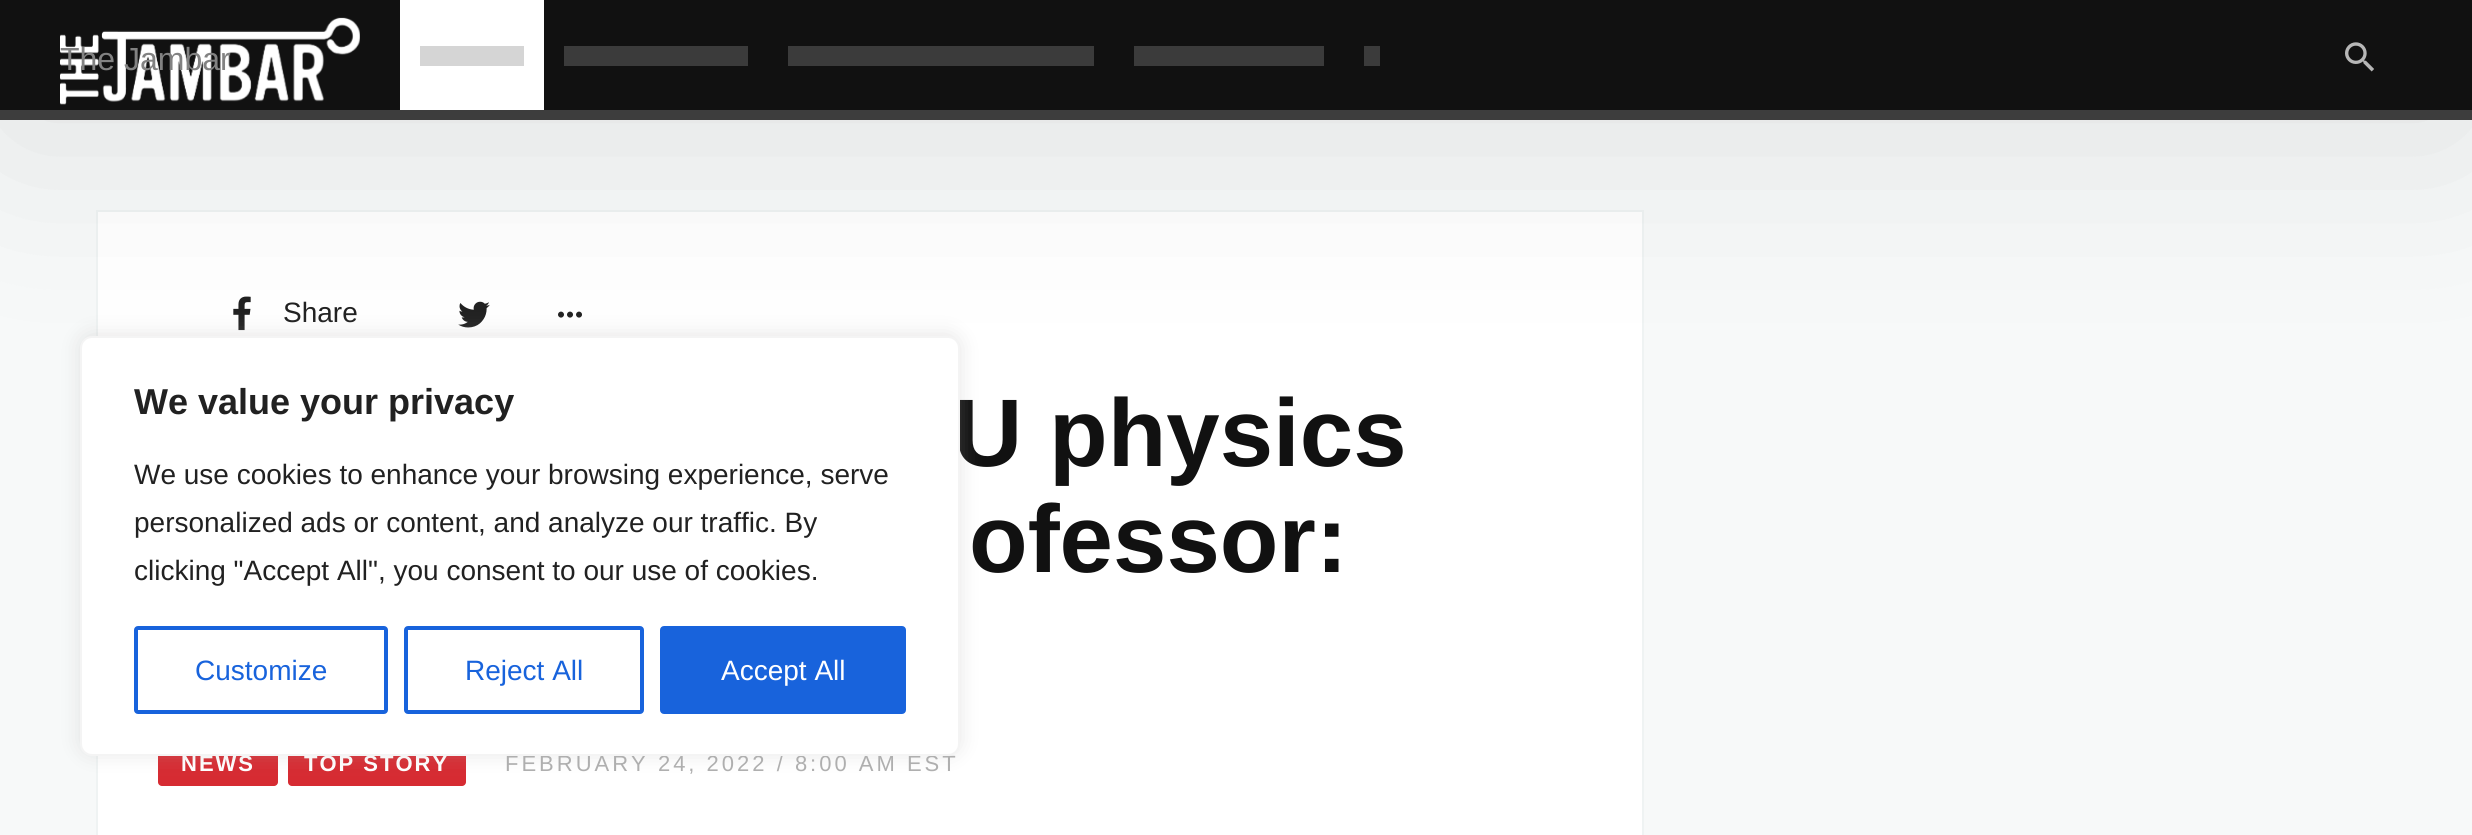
import math
import cairo

surface = cairo.ImageSurface(cairo.FORMAT_RGB24, 2472, 835)
ctx = cairo.Context(surface)
options = cairo.FontOptions()
options.set_hint_metrics(cairo.HINT_METRICS_OFF)
options.set_hint_style(cairo.HINT_STYLE_NONE)
ctx.set_font_options(options)
ctx.set_miter_limit(4)


def set_color(code):
    ctx.set_source_rgb(*(v / 255 for v in bytes.fromhex(code[-6:])))


def draw_text(x, y, s, family, size, color, bold=False, italic=False):
    ctx.select_font_face(family, cairo.FONT_SLANT_ITALIC if italic else cairo.FONT_SLANT_NORMAL, cairo.FONT_WEIGHT_BOLD if bold else cairo.FONT_WEIGHT_NORMAL)
    ctx.set_font_size(size)
    set_color(color)
    ctx.move_to(x, y)
    ctx.show_text(s)


def draw_spaced(x, y, s, letter, word):
    ctx.move_to(x, y)
    for ch in s:
        ctx.show_text(ch)
        ctx.rel_move_to(letter + word * (ch == ' '), 0)


def fill_rect(x, y, w, h, color):
    set_color(color)
    ctx.rectangle(x, y, w, h)
    ctx.fill()


def rounded_rect(x, y, w, h, r):
    ctx.new_sub_path()
    for i, (u, v) in enumerate([(x + w - r, y + h - r), (x + r, y + h - r), (x + r, y + r), (x + w - r, y + r)]):
        ctx.arc(u, v, r, i * math.pi / 2, (i + 1) * math.pi / 2)
    ctx.close_path()


def draw_shadow(x, y, w, h, r, blur, alpha):
    ctx.push_group_with_content(cairo.CONTENT_ALPHA)
    ctx.set_operator(cairo.OPERATOR_SOURCE)
    for i in range(15, -16, -2):
        e = blur * i / 6
        if min(w, h) + 2 * e > 0:
            ctx.set_source_rgba(0, 0, 0, alpha * math.erfc((i - 1) / 8.5) / 2)
            rounded_rect(x - e, y - e, w + 2 * e, h + 2 * e, max(0, min(r + e + blur * .6, min(w, h) / 2 + e)))
            ctx.fill()
    ctx.mask(ctx.pop_group())


def draw_image(path, x, y, w, h):
    ctx.save()
    ctx.set_source_surface(cairo.ImageSurface.create_from_png(path), x, y)
    ctx.rectangle(x, y, w, h)
    ctx.fill()
    ctx.restore()


set_color("#f7f9f9")
ctx.paint()
set_color("#ffffff")
ctx.rectangle(97, 211, 1546, 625)
ctx.fill_preserve()
set_color("#eff3f3")
ctx.stroke()
draw_image("assets/img3.png", 233, 296, 18, 35)
draw_image("assets/img4.png", 458, 301, 32, 27)
draw_image("assets/img5.png", 558, 311, 24, 7)
set_color("#000000")
draw_shadow(0, 20, 2472, 120, 0, 100, 0.1)
fill_rect(0, 110, 2472, 10, "#3d3d3d")
fill_rect(0, 0, 2472, 110, "#111111")
draw_image("assets/img1.png", 60, 17, 300, 88)
draw_text(60, 70, "The Jambar", "Liberation Sans", 32, "#828282")
fill_rect(400, 0, 144, 110, "#ffffff")
fill_rect(420, 46, 104, 20, "#d5d5d5")
fill_rect(564, 46, 184, 20, "#3b3b3b")
fill_rect(788, 46, 306, 20, "#3b3b3b")
fill_rect(1134, 46, 190, 20, "#3b3b3b")
fill_rect(1364, 46, 16, 20, "#3b3b3b")
draw_image("assets/img2.png", 2345, 42, 29, 30)
draw_text(283, 322, "Share", "Liberation Sans", 28, "#212121")
draw_text(953, 466, "U physics", "Liberation Sans", 96, "#111111", bold=True)
draw_text(969, 572, "ofessor:", "Liberation Sans", 96, "#111111", bold=True)
set_color("#d62b32")
rounded_rect(158, 738, 120, 48, 4)
ctx.fill()
ctx.set_font_size(22)
set_color("#ffffff")
draw_spaced(181, 771, "NEWS", 2, 0)
set_color("#d62b32")
rounded_rect(288, 738, 178, 48, 4)
ctx.fill()
set_color("#ffffff")
draw_spaced(304, 771, "TOP STORY", 2, 0)
ctx.select_font_face("Liberation Sans")
set_color("#afafaf")
draw_spaced(505, 771, "FEBRUARY 24, 2022 / 8:00 AM EST", 3, 0)
set_color("#acabab")
draw_shadow(80, 334, 880, 420, 12, 10, 0.3)
set_color("#ffffff")
rounded_rect(81, 337, 878, 418, 11)
ctx.fill_preserve()
set_color("#f4f4f4")
ctx.stroke()
draw_text(134, 414, "We value your privacy", "Liberation Sans", 36, "#212121", bold=True)
draw_text(134, 484, "We use cookies to enhance your browsing experience, serve", "Liberation Sans", 28, "#212121")
draw_text(134, 532, "personalized ads or content, and analyze our traffic. By", "Liberation Sans", 28, "#212121")
draw_text(134, 580, "clicking \"Accept All\", you consent to our use of cookies.", "Liberation Sans", 28, "#212121")
rounded_rect(136, 628, 250, 84, 2)
set_color("#1863dc")
ctx.set_line_width(4)
ctx.stroke()
draw_text(195, 680, "Customize", "Liberation Sans", 28, "#1863dc")
rounded_rect(406, 628, 236, 84, 2)
ctx.stroke()
draw_text(465, 680, "Reject All", "Liberation Sans", 28, "#1863dc")
rounded_rect(662, 628, 242, 84, 2)
ctx.fill_preserve()
ctx.stroke()
draw_text(721, 680, "Accept All", "Liberation Sans", 28, "#ffffff")
surface.write_to_png("output.png")
